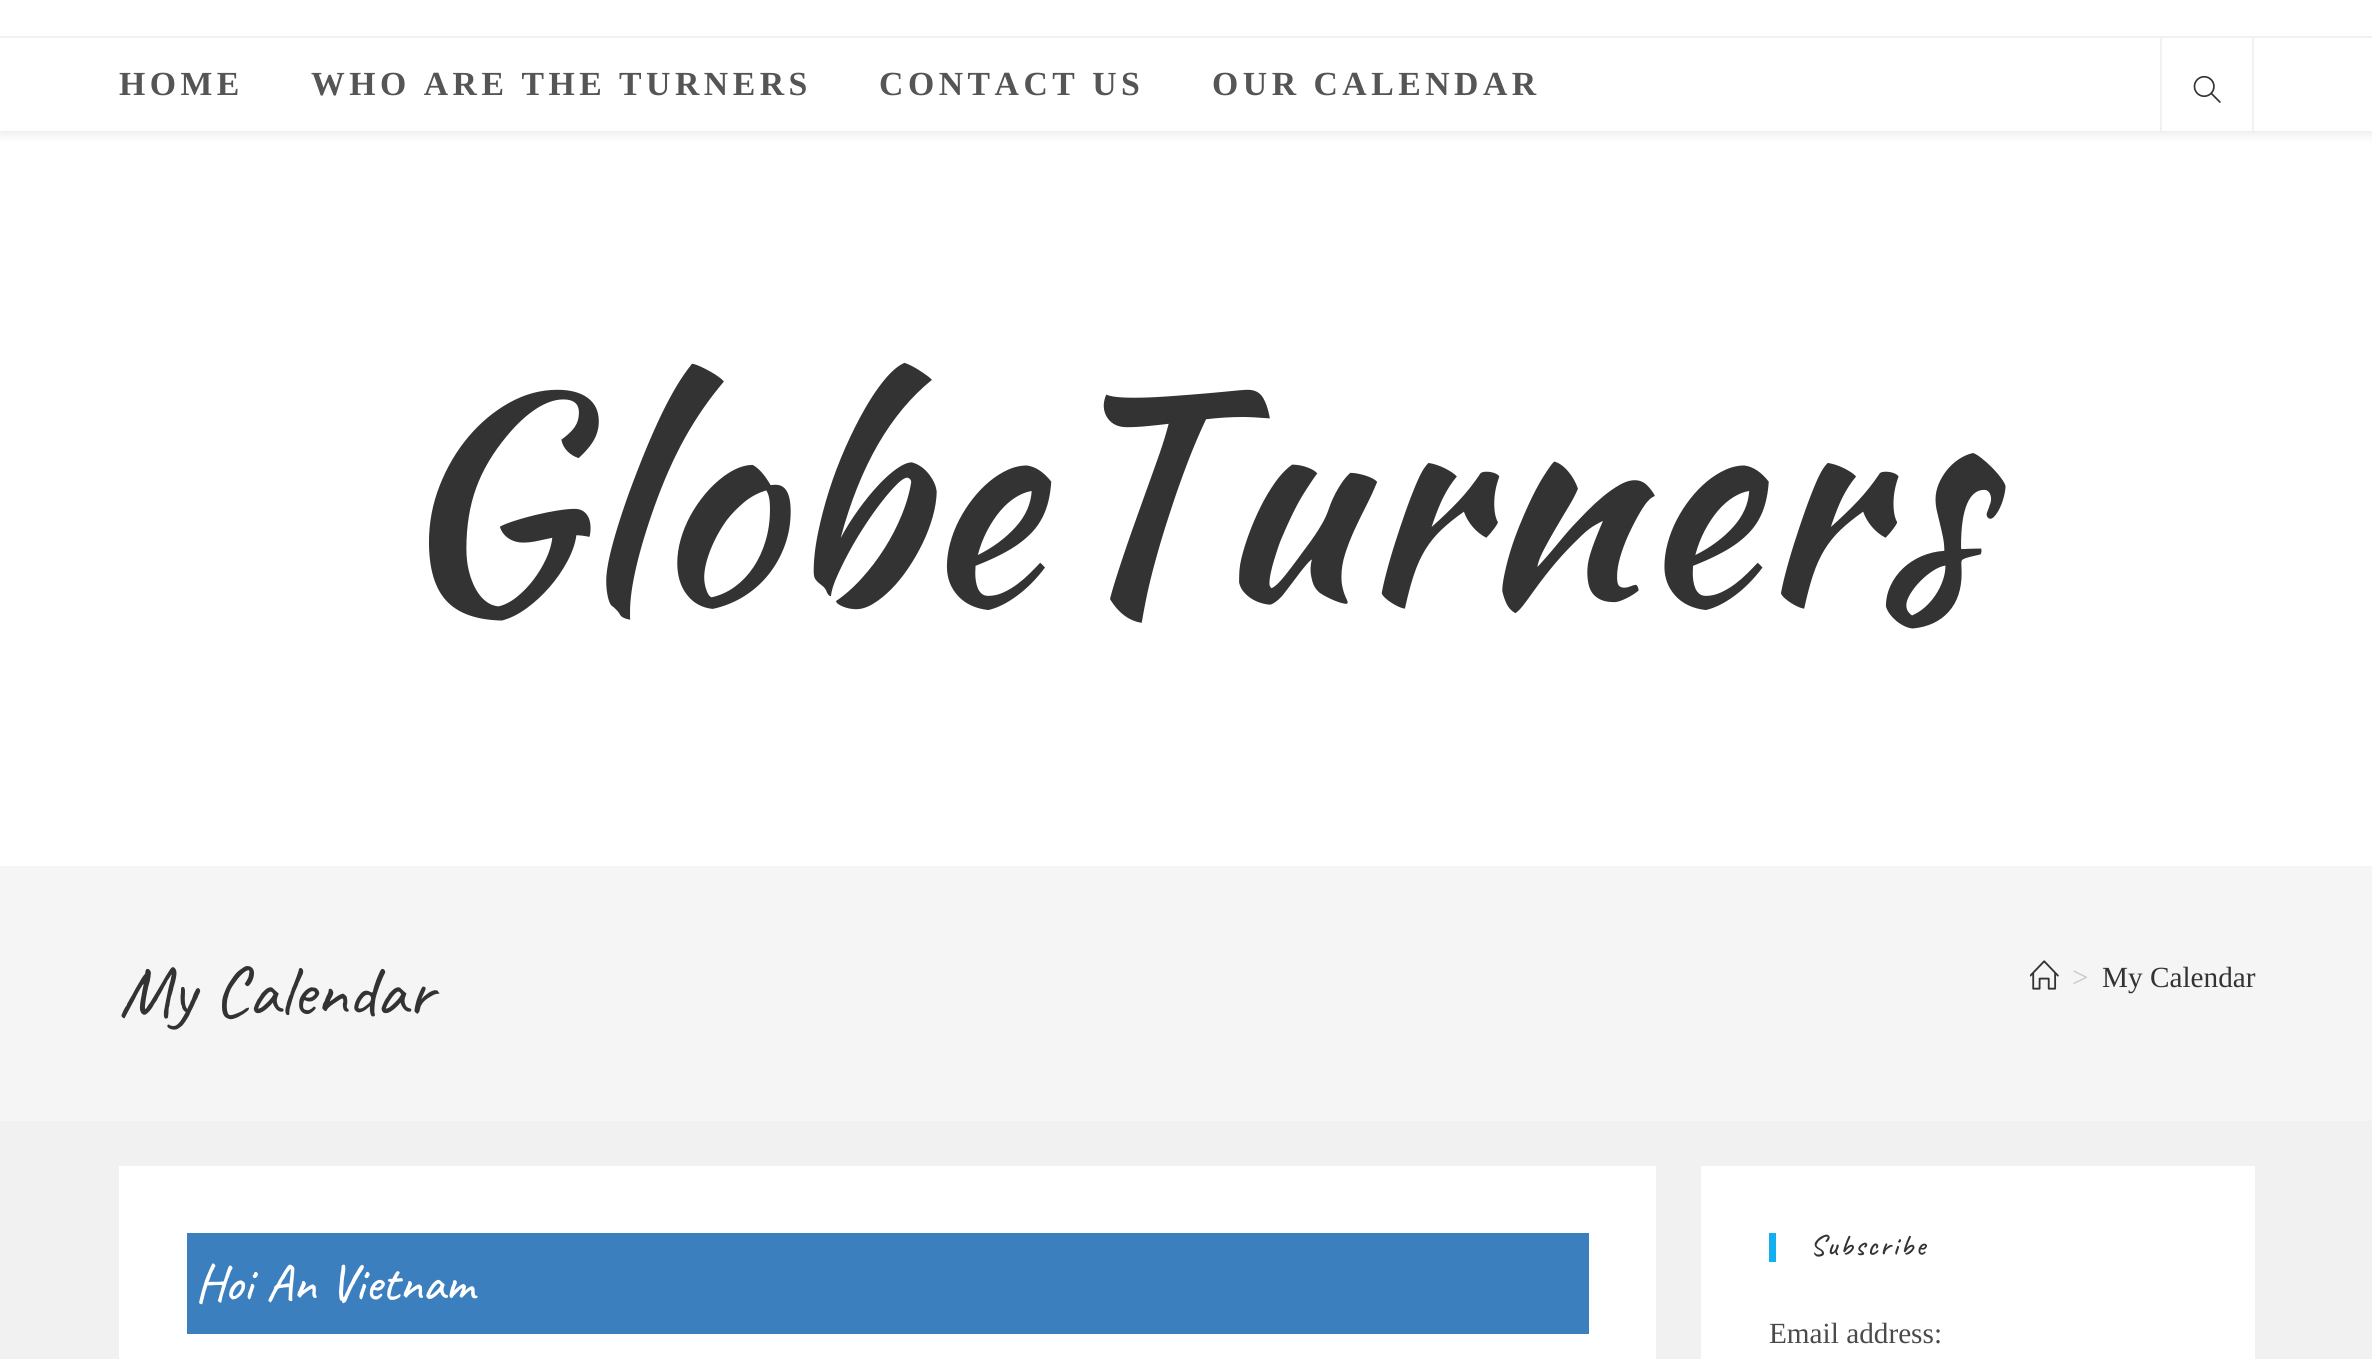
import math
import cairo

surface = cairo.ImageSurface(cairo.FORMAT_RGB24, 2372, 1359)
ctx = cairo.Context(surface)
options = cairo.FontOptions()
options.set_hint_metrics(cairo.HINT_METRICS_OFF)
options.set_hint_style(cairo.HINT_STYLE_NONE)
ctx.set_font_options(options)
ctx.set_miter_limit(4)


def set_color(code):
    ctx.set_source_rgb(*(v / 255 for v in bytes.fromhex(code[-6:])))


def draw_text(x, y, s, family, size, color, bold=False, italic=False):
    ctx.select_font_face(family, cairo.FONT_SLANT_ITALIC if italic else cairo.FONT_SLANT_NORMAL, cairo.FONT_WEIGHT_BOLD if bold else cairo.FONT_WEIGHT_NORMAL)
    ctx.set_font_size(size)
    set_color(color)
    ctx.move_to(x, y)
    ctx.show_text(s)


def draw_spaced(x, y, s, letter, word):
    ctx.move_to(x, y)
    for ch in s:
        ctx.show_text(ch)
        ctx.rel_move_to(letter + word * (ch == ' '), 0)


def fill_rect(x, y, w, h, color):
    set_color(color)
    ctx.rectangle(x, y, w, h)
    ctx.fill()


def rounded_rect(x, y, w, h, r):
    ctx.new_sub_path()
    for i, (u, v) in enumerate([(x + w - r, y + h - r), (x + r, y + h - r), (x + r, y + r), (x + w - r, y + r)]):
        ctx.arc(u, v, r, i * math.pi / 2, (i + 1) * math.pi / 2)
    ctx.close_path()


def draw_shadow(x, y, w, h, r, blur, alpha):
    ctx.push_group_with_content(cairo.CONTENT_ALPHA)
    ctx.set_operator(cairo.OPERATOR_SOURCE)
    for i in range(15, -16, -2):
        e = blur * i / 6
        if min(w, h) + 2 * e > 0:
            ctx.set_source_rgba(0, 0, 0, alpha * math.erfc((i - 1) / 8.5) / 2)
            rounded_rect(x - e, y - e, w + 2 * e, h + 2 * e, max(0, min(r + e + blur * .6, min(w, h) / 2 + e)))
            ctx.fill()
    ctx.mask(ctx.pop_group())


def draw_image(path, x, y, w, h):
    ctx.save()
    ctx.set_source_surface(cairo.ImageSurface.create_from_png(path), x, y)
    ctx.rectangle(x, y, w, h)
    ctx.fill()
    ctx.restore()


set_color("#f1f1f1")
ctx.paint()
fill_rect(0, 131, 2372, 735, "#ffffff")
set_color("#000000")
draw_shadow(0, 41, 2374, 92, 0, 5.5, 0.1)
fill_rect(0, 0, 2372, 36, "#ffffff")
fill_rect(0, 36, 2372, 2, "#f1f1f1")
fill_rect(0, 38, 2372, 93, "#ffffff")
ctx.select_font_face("Liberation Serif", cairo.FONT_SLANT_NORMAL, cairo.FONT_WEIGHT_BOLD)
ctx.set_font_size(33.75)
set_color("#555555")
draw_spaced(119, 95, "HOME", 4.5, 0)
draw_spaced(311, 95, "WHO ARE THE TURNERS", 4.5, 0)
draw_spaced(879, 95, "CONTACT US", 4.5, 0)
draw_spaced(1212, 95, "OUR CALENDAR", 4.5, 0)
fill_rect(2252, 38, 2, 93, "#f1f1f1")
fill_rect(2160, 38, 2, 93, "#f1f1f1")
draw_image("assets/img1.png", 2193, 75, 28, 28)
ctx.select_font_face("Kaushan Script")
ctx.set_font_size(283.5)
set_color("#333333")
draw_spaced(389, 599, "GlobeTurners", 5.8, 0)
fill_rect(0, 866, 2372, 255, "#f5f5f5")
ctx.select_font_face("Caveat")
ctx.set_font_size(72)
set_color("#333333")
draw_spaced(119, 1015, "My Calendar", 0, 1)
draw_image("assets/img2.png", 2030, 960, 29, 30)
draw_text(2072, 987, ">", "Liberation Serif", 29.25, "#c6c6c6")
draw_text(2102, 987, "My Calendar", "Liberation Serif", 29.25, "#333333")
fill_rect(119, 1166, 1537, 193, "#ffffff")
fill_rect(187, 1233, 1402, 101, "#3b7fbf")
ctx.select_font_face("Caveat Medium")
ctx.set_font_size(51.75)
set_color("#ffffff")
draw_spaced(195, 1300, "Hoi An Vietnam", 0, 1)
fill_rect(1701, 1166, 554, 193, "#ffffff")
fill_rect(1769, 1233, 7, 29, "#13aff0")
ctx.set_font_size(29.25)
set_color("#333333")
draw_spaced(1810, 1255, "Subscribe", 2.25, 0)
draw_text(1769, 1343, "Email address:", "Liberation Serif", 29.25, "#4a4a4a")
surface.write_to_png("output.png")
